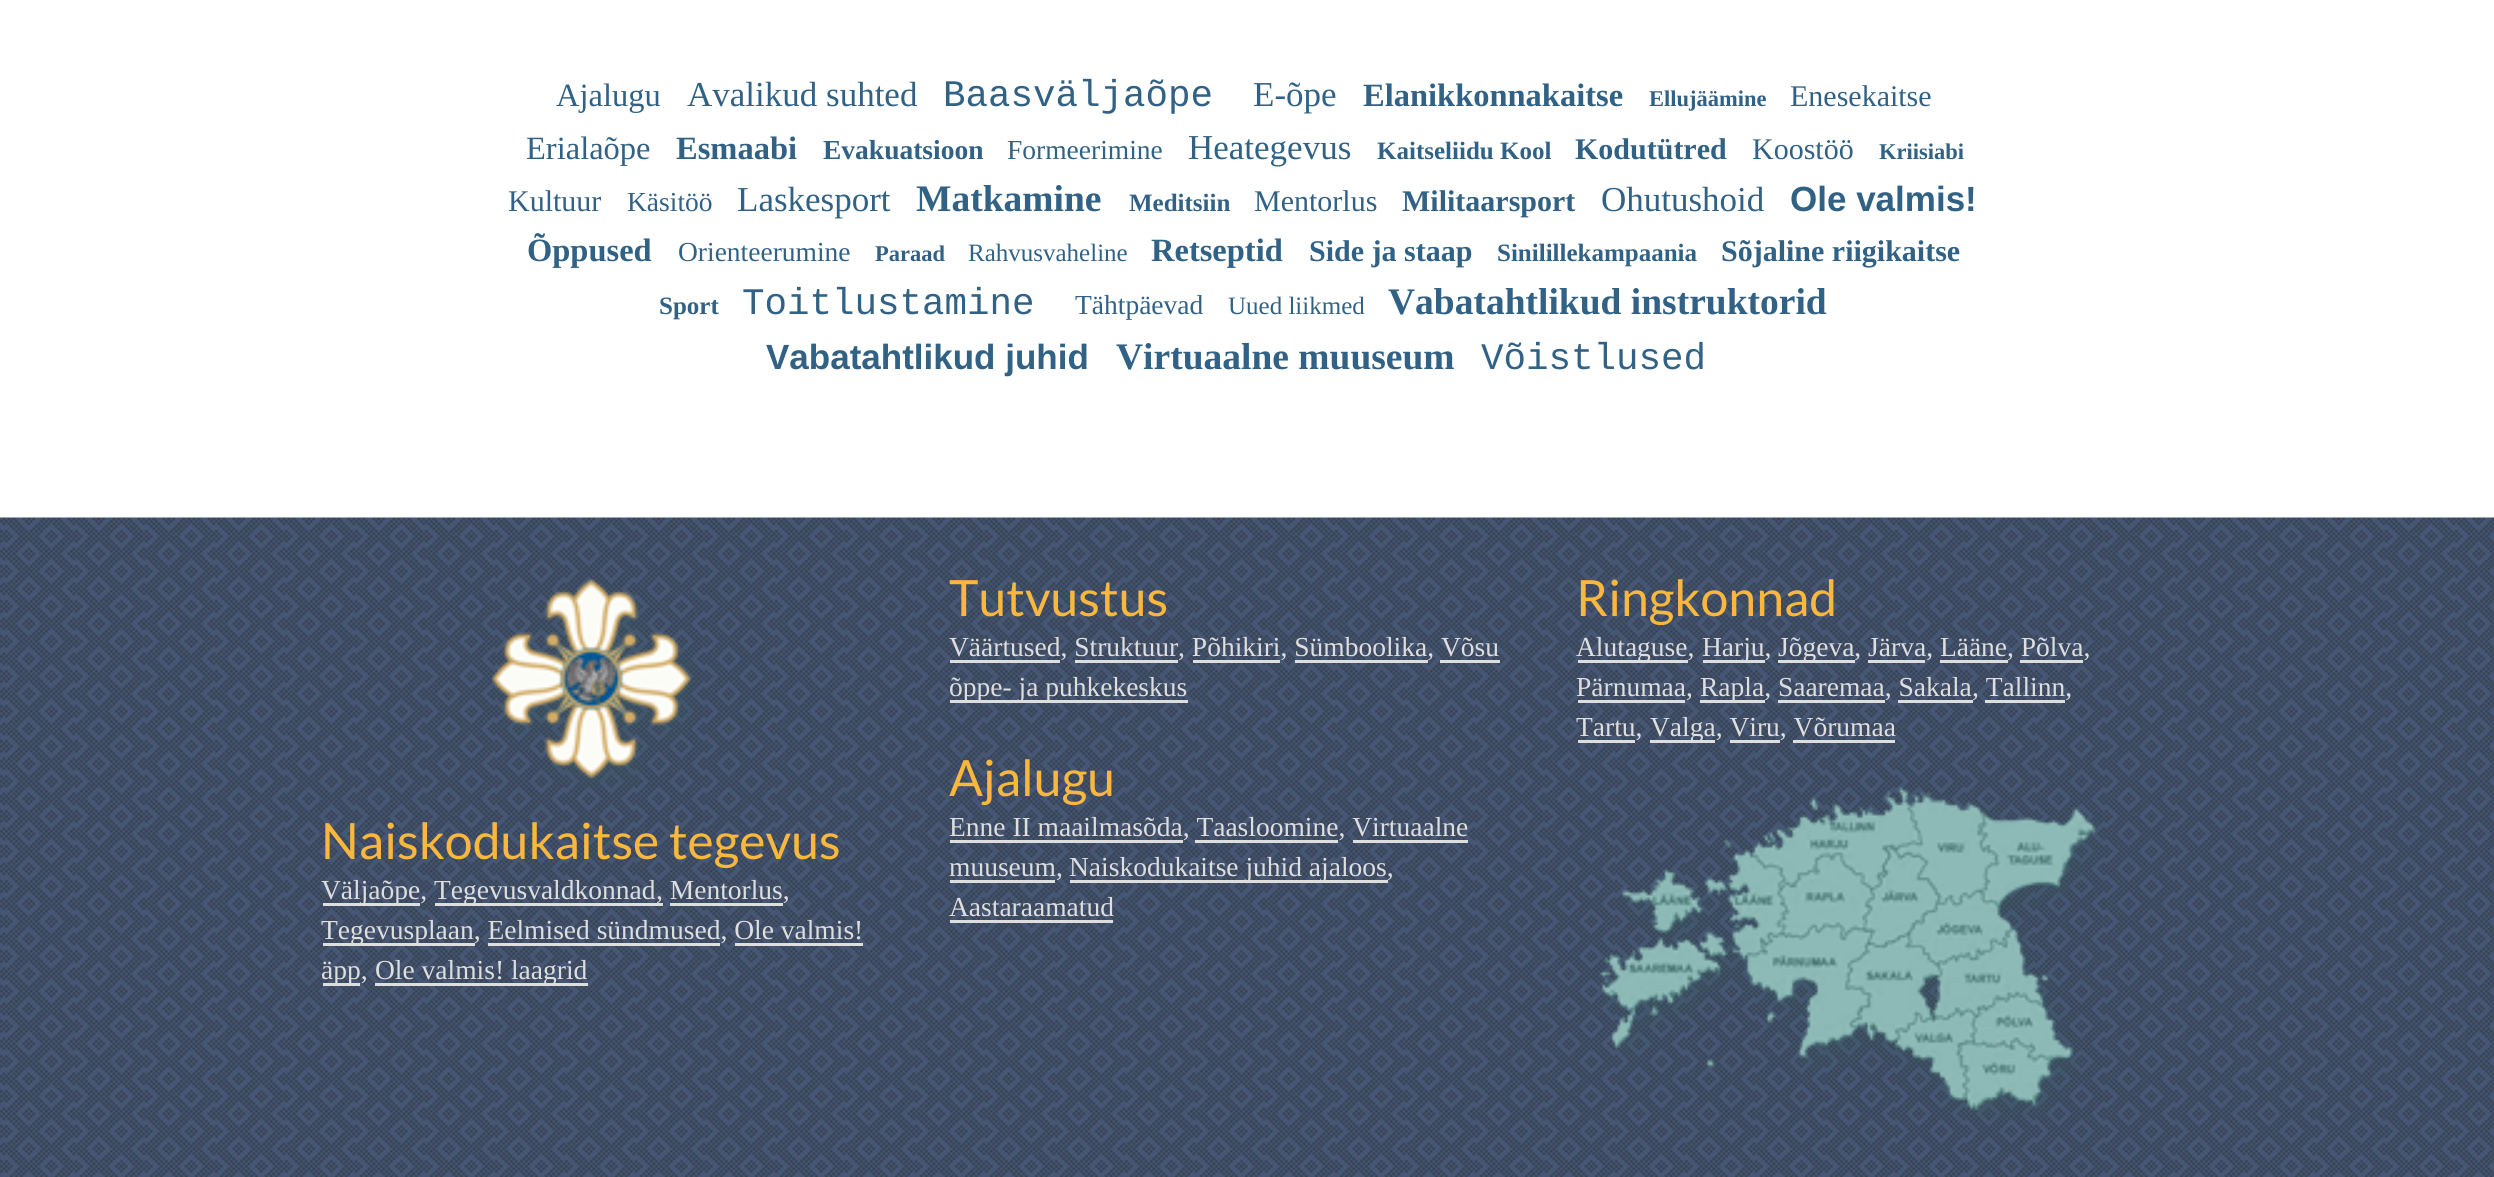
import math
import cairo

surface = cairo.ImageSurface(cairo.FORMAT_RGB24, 2494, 1177)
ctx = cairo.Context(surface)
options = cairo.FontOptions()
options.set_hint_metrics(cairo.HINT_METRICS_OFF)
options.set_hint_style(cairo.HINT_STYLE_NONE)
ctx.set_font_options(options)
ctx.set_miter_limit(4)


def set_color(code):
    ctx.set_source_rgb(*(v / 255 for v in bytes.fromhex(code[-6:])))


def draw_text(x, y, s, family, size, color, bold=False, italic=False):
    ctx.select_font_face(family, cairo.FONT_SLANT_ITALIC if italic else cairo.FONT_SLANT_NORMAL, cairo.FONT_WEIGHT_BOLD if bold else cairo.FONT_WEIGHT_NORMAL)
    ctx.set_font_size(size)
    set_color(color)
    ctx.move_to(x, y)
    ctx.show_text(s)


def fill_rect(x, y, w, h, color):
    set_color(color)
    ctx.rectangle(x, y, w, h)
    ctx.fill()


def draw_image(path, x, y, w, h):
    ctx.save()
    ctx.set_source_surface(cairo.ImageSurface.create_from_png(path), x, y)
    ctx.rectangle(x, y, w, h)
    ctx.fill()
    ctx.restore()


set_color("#ffffff")
ctx.paint()
draw_text(556, 106, "Ajalugu", "Liberation Serif", 32.5, "#316285")
draw_text(687, 106, "Avalikud suhted", "Liberation Serif", 35, "#316285")
draw_text(943, 106, "Baasväljaõpe", "Liberation Mono", 37.5, "#316285")
draw_text(1253, 106, "E-õpe", "Liberation Serif", 35, "#316285")
draw_text(1363, 106, "Elanikkonnakaitse", "Liberation Serif", 32.5, "#316285", bold=True)
draw_text(1649, 106, "Ellujäämine", "Liberation Serif", 22.5, "#316285", bold=True)
draw_text(1790, 106, "Enesekaitse", "Liberation Serif", 30, "#316285")
draw_text(526, 159, "Erialaõpe", "Liberation Serif", 32.5, "#316285")
draw_text(676, 159, "Esmaabi", "Liberation Serif", 32.5, "#316285", bold=True)
draw_text(823, 159, "Evakuatsioon", "Liberation Serif", 27.5, "#316285", bold=True)
draw_text(1007, 159, "Formeerimine", "Liberation Serif", 27.5, "#316285")
draw_text(1188, 159, "Heategevus", "Liberation Serif", 35, "#316285")
draw_text(1377, 159, "Kaitseliidu Kool", "Liberation Serif", 25, "#316285", bold=True)
draw_text(1575, 159, "Kodutütred", "Liberation Serif", 30, "#316285", bold=True)
draw_text(1752, 159, "Koostöö", "Liberation Serif", 30, "#316285")
draw_text(1879, 159, "Kriisiabi", "Liberation Serif", 22.5, "#316285", bold=True)
draw_text(508, 211, "Kultuur", "Liberation Serif", 30, "#316285")
draw_text(627, 211, "Käsitöö", "Liberation Serif", 27.5, "#316285")
draw_text(737, 211, "Laskesport", "Liberation Serif", 35, "#316285")
draw_text(916, 211, "Matkamine", "Liberation Serif", 37.5, "#316285", bold=True)
draw_text(1129, 211, "Meditsiin", "Liberation Serif", 25, "#316285", bold=True)
draw_text(1254, 211, "Mentorlus", "Liberation Serif", 30, "#316285")
draw_text(1402, 211, "Militaarsport", "Liberation Serif", 30, "#316285", bold=True)
draw_text(1601, 211, "Ohutushoid", "Liberation Serif", 35, "#316285")
draw_text(1790, 211, "Ole valmis!", "Liberation Sans", 35, "#316285", bold=True)
draw_text(527, 261, "Õppused", "Liberation Serif", 32.5, "#316285", bold=True)
draw_text(678, 261, "Orienteerumine", "Liberation Serif", 27.5, "#316285")
draw_text(875, 261, "Paraad", "Liberation Serif", 22.5, "#316285", bold=True)
draw_text(968, 261, "Rahvusvaheline", "Liberation Serif", 25, "#316285")
draw_text(1151, 261, "Retseptid", "Liberation Serif", 32.5, "#316285", bold=True)
draw_text(1309, 261, "Side ja staap", "Liberation Serif", 30, "#316285", bold=True)
draw_text(1497, 261, "Sinilillekampaania", "Liberation Serif", 25, "#316285", bold=True)
draw_text(1721, 261, "Sõjaline riigikaitse", "Liberation Serif", 30, "#316285", bold=True)
draw_text(659, 314, "Sport", "Liberation Serif", 25, "#316285", bold=True)
draw_text(742, 314, "Toitlustamine", "Liberation Mono", 37.5, "#316285")
draw_text(1075, 314, "Tähtpäevad", "Liberation Serif", 27.5, "#316285")
draw_text(1228, 314, "Uued liikmed", "Liberation Serif", 25, "#316285")
draw_text(1388, 314, "Vabatahtlikud instruktorid", "Liberation Serif", 37.5, "#316285", bold=True)
draw_text(766, 369, "Vabatahtlikud juhid", "Liberation Sans", 35, "#316285", bold=True)
draw_text(1116, 369, "Virtuaalne muuseum", "Liberation Serif", 37.5, "#316285", bold=True)
draw_text(1481, 369, "Võistlused", "Liberation Mono", 37.5, "#316285")
draw_image("assets/img1.png", 0, 517, 2494, 660)
draw_image("assets/img2.png", 491, 579, 206, 208)
draw_text(321, 859, "Naiskodukaitse tegevus", "Lato", 50, "#f9b83d")
fill_rect(323, 903, 97, 3, "#dedede")
draw_text(321, 899, "Väljaõpe,", "Liberation Serif", 27.5, "#dedede")
fill_rect(435, 903, 220, 3, "#dedede")
draw_text(434, 899, "Tegevusvaldkonnad", "Liberation Serif", 27.5, "#dedede")
fill_rect(655, 903, 8, 3, "#dedede")
draw_text(656, 899, ", Mentorlus,", "Liberation Serif", 27.5, "#dedede")
fill_rect(670, 903, 113, 3, "#dedede")
fill_rect(323, 943, 152, 3, "#dedede")
draw_text(321, 939, "Tegevusplaan, Eelmised sündmused, Ole valmis!", "Liberation Serif", 27.5, "#dedede")
fill_rect(488, 943, 232, 3, "#dedede")
fill_rect(323, 983, 37, 3, "#dedede")
draw_text(321, 979, "äpp,", "Liberation Serif", 27.5, "#dedede")
fill_rect(735, 943, 128, 3, "#dedede")
fill_rect(375, 983, 213, 3, "#dedede")
draw_text(375, 979, "Ole valmis! laagrid", "Liberation Serif", 27.5, "#dedede")
draw_text(949, 616, "Tutvustus", "Lato", 50, "#f9b83d")
fill_rect(950, 660, 110, 3, "#dedede")
draw_text(949, 656, "Väärtused, Struktuur, Põhikiri, Sümboolika, Võsu", "Liberation Serif", 27.5, "#dedede")
fill_rect(1075, 660, 103, 3, "#dedede")
fill_rect(1193, 660, 87, 3, "#dedede")
fill_rect(1295, 660, 133, 3, "#dedede")
fill_rect(950, 700, 238, 3, "#dedede")
draw_text(949, 696, "õppe- ja puhkekeskus", "Liberation Serif", 27.5, "#dedede")
fill_rect(1440, 660, 60, 3, "#dedede")
draw_text(949, 796, "Ajalugu", "Lato", 50, "#f9b83d")
fill_rect(950, 840, 233, 3, "#dedede")
draw_text(949, 836, "Enne II maailmasõda, Taasloomine, Virtuaalne", "Liberation Serif", 27.5, "#dedede")
fill_rect(1195, 840, 143, 3, "#dedede")
fill_rect(950, 880, 105, 3, "#dedede")
draw_text(949, 876, "muuseum,", "Liberation Serif", 27.5, "#dedede")
fill_rect(1353, 840, 115, 3, "#dedede")
fill_rect(1070, 880, 318, 3, "#dedede")
draw_text(1069, 876, "Naiskodukaitse juhid ajaloos,", "Liberation Serif", 27.5, "#dedede")
draw_text(949, 916, "Aastaraamatud", "Liberation Serif", 27.5, "#dedede")
fill_rect(950, 920, 163, 3, "#dedede")
draw_text(1576, 616, "Ringkonnad", "Lato", 50, "#f9b83d")
fill_rect(1578, 660, 110, 3, "#dedede")
draw_text(1576, 656, "Alutaguse,", "Liberation Serif", 27.5, "#dedede")
fill_rect(1703, 660, 62, 3, "#dedede")
draw_text(1702, 656, "Harju,", "Liberation Serif", 27.5, "#dedede")
fill_rect(1778, 660, 77, 3, "#dedede")
draw_text(1778, 656, "Jõgeva, Järva, Lääne, Põlva,", "Liberation Serif", 27.5, "#dedede")
fill_rect(1868, 660, 57, 3, "#dedede")
fill_rect(1940, 660, 68, 3, "#dedede")
fill_rect(2020, 660, 63, 3, "#dedede")
fill_rect(1578, 700, 107, 3, "#dedede")
draw_text(1576, 696, "Pärnumaa,", "Liberation Serif", 27.5, "#dedede")
fill_rect(1700, 700, 65, 3, "#dedede")
draw_text(1700, 696, "Rapla, Saaremaa, Sakala", "Liberation Serif", 27.5, "#dedede")
fill_rect(1898, 700, 75, 3, "#dedede")
draw_text(1972, 696, ", Tallinn,", "Liberation Serif", 27.5, "#dedede")
fill_rect(1778, 700, 107, 3, "#dedede")
fill_rect(1985, 700, 80, 3, "#dedede")
fill_rect(1578, 740, 57, 3, "#dedede")
draw_text(1576, 736, "Tartu,", "Liberation Serif", 27.5, "#dedede")
fill_rect(1650, 740, 65, 3, "#dedede")
draw_text(1650, 736, "Valga, Viru, Võrumaa", "Liberation Serif", 27.5, "#dedede")
fill_rect(1730, 740, 50, 3, "#dedede")
fill_rect(1793, 740, 102, 3, "#dedede")
draw_image("assets/img3.png", 1599, 787, 505, 332)
surface.write_to_png("output.png")
